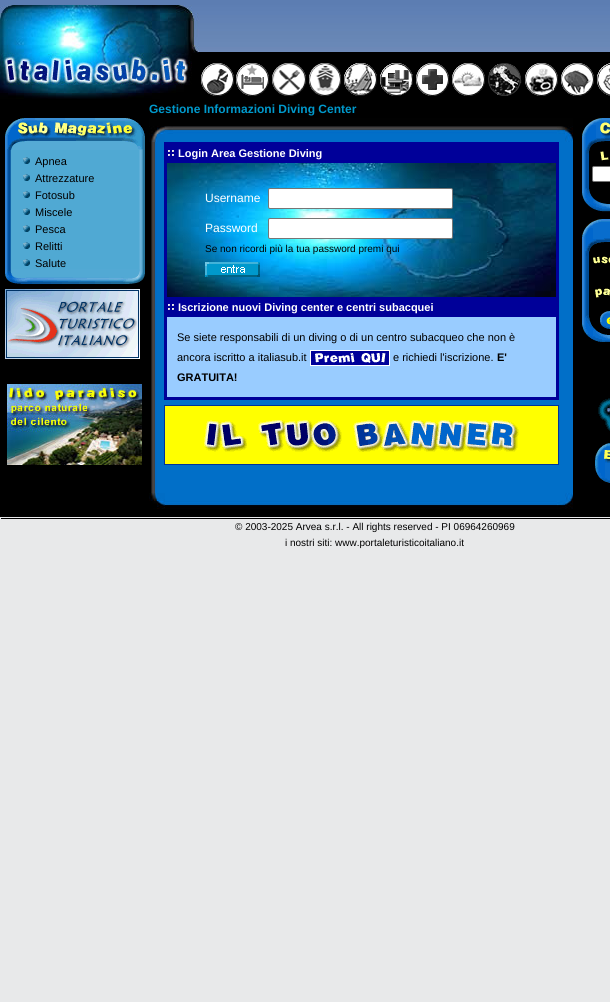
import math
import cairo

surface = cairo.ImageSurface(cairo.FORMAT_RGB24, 610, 1002)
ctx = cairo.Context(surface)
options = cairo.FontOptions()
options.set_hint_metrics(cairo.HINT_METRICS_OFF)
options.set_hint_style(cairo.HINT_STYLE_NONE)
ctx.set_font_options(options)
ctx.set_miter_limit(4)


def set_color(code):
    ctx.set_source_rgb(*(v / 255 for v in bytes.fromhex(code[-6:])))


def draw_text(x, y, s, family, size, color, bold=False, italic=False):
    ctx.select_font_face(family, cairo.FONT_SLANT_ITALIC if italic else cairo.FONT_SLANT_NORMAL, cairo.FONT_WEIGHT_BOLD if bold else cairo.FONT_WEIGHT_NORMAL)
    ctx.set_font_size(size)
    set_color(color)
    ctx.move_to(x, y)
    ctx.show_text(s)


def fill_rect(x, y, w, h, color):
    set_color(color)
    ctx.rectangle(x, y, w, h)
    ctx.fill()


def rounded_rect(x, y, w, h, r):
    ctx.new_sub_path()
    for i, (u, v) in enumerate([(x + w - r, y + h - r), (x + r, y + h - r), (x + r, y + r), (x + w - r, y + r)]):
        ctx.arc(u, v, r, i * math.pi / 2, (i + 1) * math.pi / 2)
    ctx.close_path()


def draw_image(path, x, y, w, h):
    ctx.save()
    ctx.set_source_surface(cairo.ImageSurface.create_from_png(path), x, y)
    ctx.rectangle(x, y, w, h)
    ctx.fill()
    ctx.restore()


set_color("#e8e9ea")
ctx.paint()
draw_image("assets/img1.png", 0, 0, 610, 5)
fill_rect(0, 52, 610, 465, "#000000")
draw_image("assets/img2.png", 0, 5, 199, 94)
draw_image("assets/img3.png", 199, 5, 411, 47)
draw_image("assets/img4.png", 201, 63, 33, 33)
draw_image("assets/img5.png", 236, 63, 33, 33)
draw_image("assets/img6.png", 272, 63, 34, 33)
draw_image("assets/img7.png", 309, 63, 32, 33)
draw_image("assets/img8.png", 344, 63, 33, 33)
draw_image("assets/img9.png", 380, 63, 33, 33)
draw_image("assets/img10.png", 416, 63, 33, 33)
draw_image("assets/img11.png", 452, 63, 33, 33)
draw_image("assets/img12.png", 488, 63, 34, 33)
draw_image("assets/img13.png", 525, 63, 33, 33)
draw_image("assets/img14.png", 561, 63, 33, 33)
draw_image("assets/img15.png", 597, 63, 13, 33)
draw_text(149, 113, "Gestione Informazioni Diving Center", "Liberation Sans", 12, "#0099cc", bold=True)
draw_image("assets/img16.png", 5, 150, 140, 119)
draw_image("assets/img17.png", 5, 118, 140, 32)
draw_image("assets/img18.png", 23, 157, 7, 7)
draw_text(35, 165, "Apnea", "Liberation Sans", 11, "#000000")
draw_image("assets/img18.png", 23, 174, 7, 7)
draw_text(35, 182, "Attrezzature", "Liberation Sans", 11, "#000000")
draw_image("assets/img18.png", 23, 191, 7, 7)
draw_text(35, 199, "Fotosub", "Liberation Sans", 11, "#000000")
draw_image("assets/img18.png", 23, 208, 7, 7)
draw_text(35, 216, "Miscele", "Liberation Sans", 11, "#000000")
draw_image("assets/img18.png", 23, 225, 7, 7)
draw_text(35, 233, "Pesca", "Liberation Sans", 11, "#000000")
draw_image("assets/img18.png", 23, 242, 7, 7)
draw_text(35, 250, "Relitti", "Liberation Sans", 11, "#000000")
draw_image("assets/img18.png", 23, 259, 7, 7)
draw_text(35, 267, "Salute", "Liberation Sans", 11, "#000000")
draw_image("assets/img19.png", 5, 269, 140, 15)
draw_image("assets/img20.png", 5, 289, 135, 70)
draw_image("assets/img21.png", 7, 384, 135, 81)
draw_image("assets/img22.png", 151, 142, 422, 351)
draw_image("assets/img23.png", 149, 118, 424, 24)
ctx.rectangle(165, 143, 393, 256)
set_color("#000099")
ctx.stroke()
fill_rect(166, 144, 391, 18, "#000099")
draw_image("assets/img24.png", 168, 150, 6, 6)
draw_text(178, 157, "Login Area Gestione Diving", "Liberation Sans", 11, "#ffffff", bold=True)
draw_image("assets/img25.png", 167, 163, 389, 134)
ctx.rectangle(166.5, 162.5, 390, 135)
set_color("#000099")
ctx.set_line_width(1)
ctx.stroke()
draw_text(205, 202, "Username", "Liberation Sans", 12, "#ffffff")
rounded_rect(268.5, 188.5, 184, 20, 1.5)
ctx.fill_preserve()
set_color("#767676")
ctx.stroke()
draw_text(205, 232, "Password", "Liberation Sans", 12, "#ffffff")
rounded_rect(268.5, 218.5, 184, 20, 1.5)
ctx.fill_preserve()
set_color("#767676")
ctx.stroke()
draw_text(205, 252, "Se non ricordi più la tua password premi qui", "Liberation Sans", 10, "#000000")
draw_image("assets/img26.png", 205, 262, 55, 15)
fill_rect(166, 298, 391, 18, "#000099")
draw_image("assets/img24.png", 168, 304, 6, 6)
draw_text(178, 311, "Iscrizione nuovi Diving center e centri subacquei", "Liberation Sans", 11, "#ffffff", bold=True)
set_color("#99ccff")
ctx.rectangle(166.5, 316.5, 390, 81)
ctx.fill_preserve()
set_color("#000099")
ctx.stroke()
draw_text(177, 341, "Se siete responsabili di un diving o di un centro subacqueo che non è", "Liberation Sans", 11, "#000000")
draw_text(177, 361, "ancora iscritto a italiasub.it", "Liberation Sans", 11, "#000000")
draw_image("assets/img27.png", 310, 350, 80, 16)
draw_text(393, 361, "e richiedi l'iscrizione.", "Liberation Sans", 11, "#000000")
draw_text(497, 361, "E'", "Liberation Sans", 11, "#000000", bold=True)
draw_text(177, 381, "GRATUITA!", "Liberation Sans", 11, "#000000", bold=True)
draw_image("assets/img28.png", 164, 405, 395, 60)
draw_image("assets/img29.png", 582, 118, 28, 94)
set_color("#ffffff")
rounded_rect(592.5, 166.5, 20, 15, 1.5)
ctx.fill_preserve()
set_color("#767676")
ctx.stroke()
draw_image("assets/img30.png", 582, 219, 28, 123)
draw_image("assets/img31.png", 600, 311, 10, 18)
draw_image("assets/img32.png", 598, 398, 12, 33)
draw_image("assets/img33.png", 595, 443, 15, 40)
draw_image("assets/img34.png", 149, 493, 424, 16)
fill_rect(1, 518, 609, 1, "#000000")
draw_text(235, 530, "© 2003-2025 Arvea s.r.l. - All rights reserved - PI 06964260969", "Liberation Sans", 10, "#000000")
draw_text(285, 546, "i nostri siti: www.portaleturisticoitaliano.it", "Liberation Sans", 10, "#000000")
surface.write_to_png("output.png")
